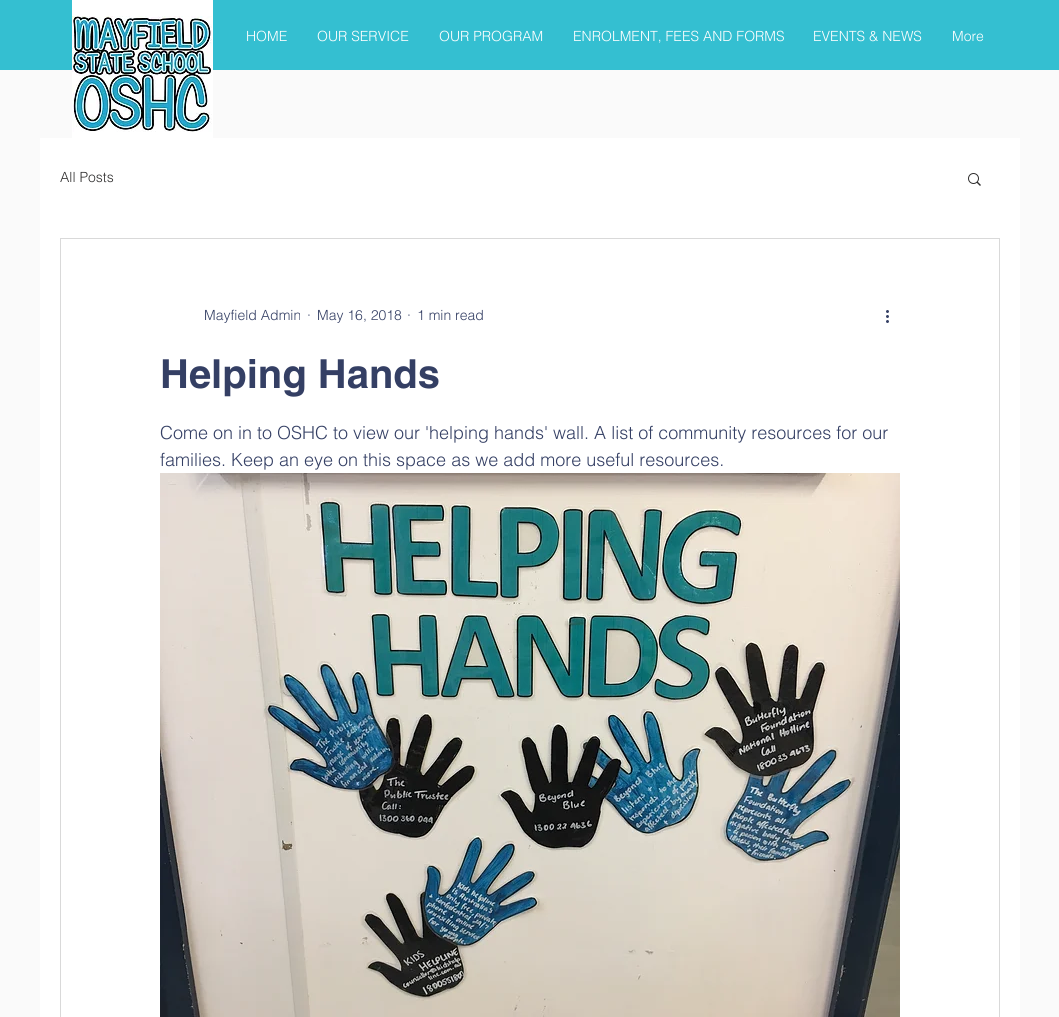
import math
import cairo

surface = cairo.ImageSurface(cairo.FORMAT_RGB24, 1059, 1017)
ctx = cairo.Context(surface)
options = cairo.FontOptions()
options.set_hint_metrics(cairo.HINT_METRICS_OFF)
options.set_hint_style(cairo.HINT_STYLE_NONE)
ctx.set_font_options(options)
ctx.set_miter_limit(4)


def set_color(code):
    ctx.set_source_rgb(*(v / 255 for v in bytes.fromhex(code[-6:])))


def draw_text(x, y, s, family, size, color, bold=False, italic=False):
    ctx.select_font_face(family, cairo.FONT_SLANT_ITALIC if italic else cairo.FONT_SLANT_NORMAL, cairo.FONT_WEIGHT_BOLD if bold else cairo.FONT_WEIGHT_NORMAL)
    ctx.set_font_size(size)
    set_color(color)
    ctx.move_to(x, y)
    ctx.show_text(s)


def fill_rect(x, y, w, h, color):
    set_color(color)
    ctx.rectangle(x, y, w, h)
    ctx.fill()


def draw_image(path, x, y, w, h):
    ctx.save()
    ctx.set_source_surface(cairo.ImageSurface.create_from_png(path), x, y)
    ctx.rectangle(x, y, w, h)
    ctx.fill()
    ctx.restore()


set_color("#fafafa")
ctx.paint()
fill_rect(0, 0, 1059, 70, "#34bfd1")
fill_rect(72, 0, 141, 138, "#ffffff")
draw_image("assets/img1.png", 72, 16, 140, 116)
draw_text(246, 41, "HOME", "helvetica Light", 14, "#ffffff")
draw_text(317, 41, "OUR SERVICE", "helvetica Light", 14, "#ffffff")
draw_text(439, 41, "OUR PROGRAM", "helvetica Light", 14, "#ffffff")
draw_text(573, 41, "ENROLMENT, FEES AND FORMS", "helvetica Light", 14, "#ffffff")
draw_text(813, 41, "EVENTS & NEWS", "helvetica Light", 14, "#ffffff")
draw_text(952, 41, "More", "helvetica Light", 14, "#ffffff")
fill_rect(40, 138, 980, 879, "#ffffff")
draw_text(60, 182, "All Posts", "helvetica Light", 14, "#2f2e2e")
draw_image("assets/img2.png", 968, 173, 13, 13)
ctx.rectangle(60.5, 238.5, 939, 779)
set_color("#d9d9d9")
ctx.set_line_width(1)
ctx.stroke()
draw_text(204, 320, "Mayfield Admin", "helvetica Light", 14, "#343f64")
draw_text(307, 320, "·", "helvetica Light", 14, "#343f64")
draw_text(317, 320, "May 16, 2018", "helvetica Light", 14, "#343f64")
draw_text(407, 320, "·", "helvetica Light", 14, "#343f64")
draw_text(417, 320, "1 min read", "helvetica Light", 14, "#343f64")
draw_image("assets/img3.png", 886, 310, 3, 13)
draw_text(160, 388, "Helping Hands", "helvetica", 40, "#343f64", bold=True)
draw_text(160, 439, "Come on in to OSHC to view our 'helping hands' wall. A list of community resources for our", "helvetica Light", 18, "#343f64")
draw_text(160, 466, "families. Keep an eye on this space as we add more useful resources.", "helvetica Light", 18, "#343f64")
draw_image("assets/img4.png", 160, 473, 740, 544)
surface.write_to_png("output.png")
